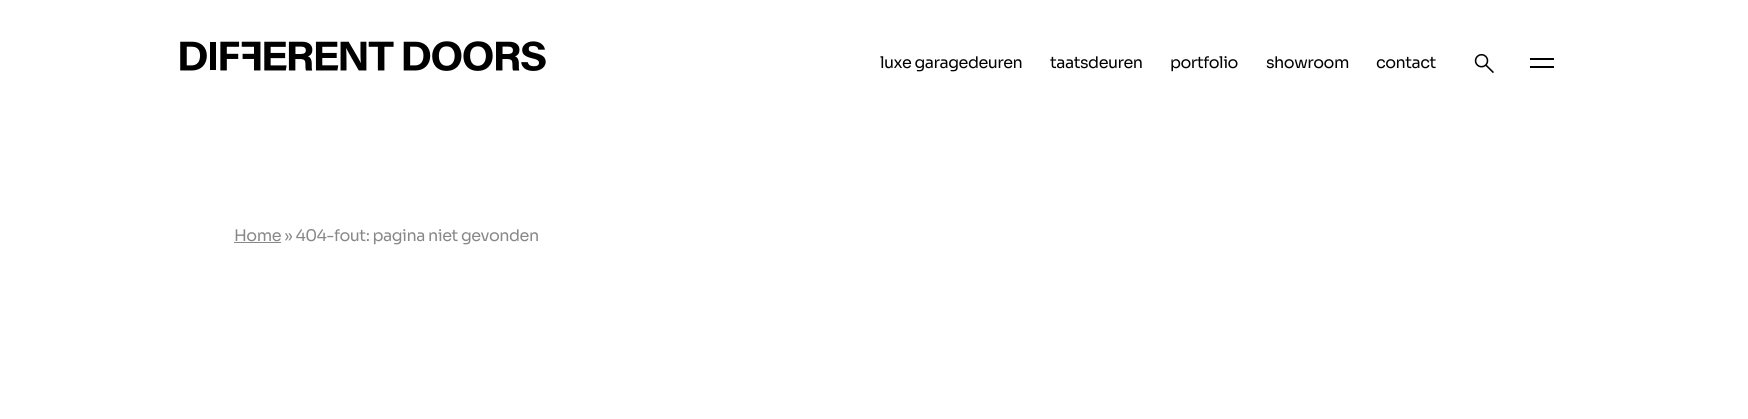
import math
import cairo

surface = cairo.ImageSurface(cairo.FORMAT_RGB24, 1748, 419)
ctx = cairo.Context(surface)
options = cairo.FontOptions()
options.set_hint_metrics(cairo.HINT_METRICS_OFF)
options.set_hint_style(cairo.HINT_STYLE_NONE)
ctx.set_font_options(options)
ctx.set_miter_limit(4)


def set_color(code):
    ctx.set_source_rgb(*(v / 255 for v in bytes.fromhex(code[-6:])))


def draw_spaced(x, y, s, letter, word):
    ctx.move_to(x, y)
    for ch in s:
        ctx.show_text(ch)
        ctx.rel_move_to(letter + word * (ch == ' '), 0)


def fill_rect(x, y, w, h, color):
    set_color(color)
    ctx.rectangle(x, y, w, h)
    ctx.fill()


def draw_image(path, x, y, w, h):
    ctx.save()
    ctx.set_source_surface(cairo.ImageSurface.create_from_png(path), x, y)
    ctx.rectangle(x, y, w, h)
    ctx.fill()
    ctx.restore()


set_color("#ffffff")
ctx.paint()
draw_image("assets/img1.png", 180, 41, 366, 30)
ctx.select_font_face("Sora")
ctx.set_font_size(16)
set_color("#000000")
draw_spaced(880, 68, "luxe garagedeuren", -0.5, 0)
draw_spaced(1050, 68, "taatsdeuren", -0.5, 0)
draw_spaced(1170, 68, "portfolio", -0.5, 0)
draw_spaced(1266, 68, "showroom", -0.5, 0)
draw_spaced(1376, 68, "contact", -0.5, 0)
draw_image("assets/img2.png", 1474, 54, 20, 20)
fill_rect(1530, 58, 24, 2, "#000000")
fill_rect(1530, 66, 24, 2, "#000000")
fill_rect(234, 242, 47, 1, "#888888")
draw_spaced(234, 241, "Home » 404-fout: pagina niet gevonden", -0.5, 0)
surface.write_to_png("output.png")
